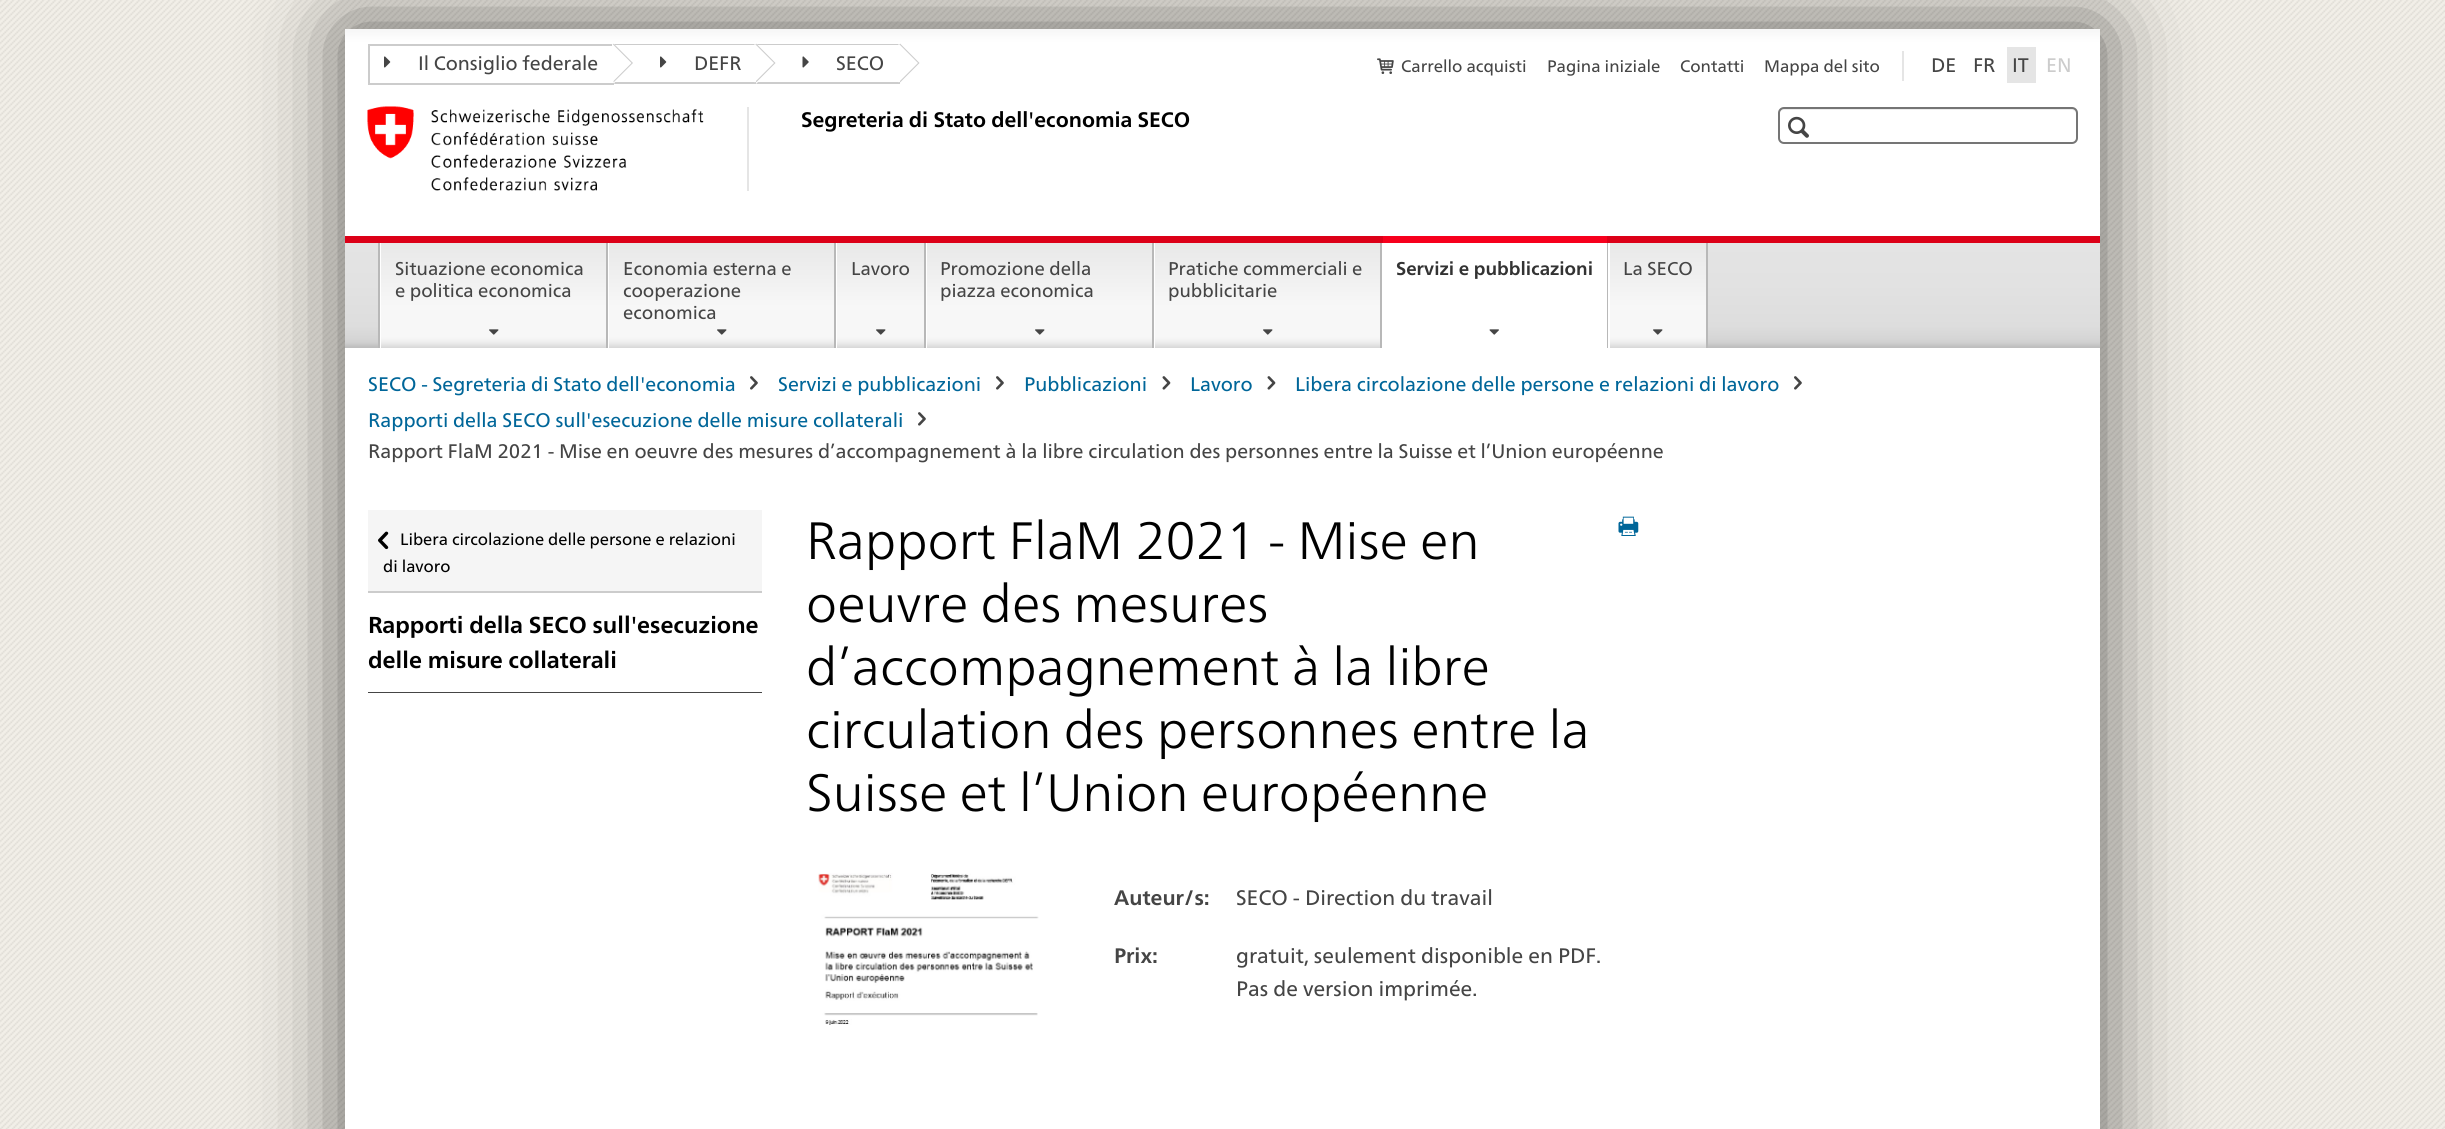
import math
import cairo

surface = cairo.ImageSurface(cairo.FORMAT_RGB24, 2445, 1129)
ctx = cairo.Context(surface)
options = cairo.FontOptions()
options.set_hint_metrics(cairo.HINT_METRICS_OFF)
options.set_hint_style(cairo.HINT_STYLE_NONE)
ctx.set_font_options(options)
ctx.set_miter_limit(4)


def set_color(code):
    ctx.set_source_rgb(*(v / 255 for v in bytes.fromhex(code[-6:])))


def draw_text(x, y, s, family, size, color, bold=False, italic=False):
    ctx.select_font_face(family, cairo.FONT_SLANT_ITALIC if italic else cairo.FONT_SLANT_NORMAL, cairo.FONT_WEIGHT_BOLD if bold else cairo.FONT_WEIGHT_NORMAL)
    ctx.set_font_size(size)
    set_color(color)
    ctx.move_to(x, y)
    ctx.show_text(s)


def fill_rect(x, y, w, h, color):
    set_color(color)
    ctx.rectangle(x, y, w, h)
    ctx.fill()


def rounded_rect(x, y, w, h, r):
    ctx.new_sub_path()
    for i, (u, v) in enumerate([(x + w - r, y + h - r), (x + r, y + h - r), (x + r, y + r), (x + w - r, y + r)]):
        ctx.arc(u, v, r, i * math.pi / 2, (i + 1) * math.pi / 2)
    ctx.close_path()


def draw_shadow(x, y, w, h, r, blur, alpha):
    ctx.push_group_with_content(cairo.CONTENT_ALPHA)
    ctx.set_operator(cairo.OPERATOR_SOURCE)
    for i in range(15, -16, -2):
        e = blur * i / 6
        if min(w, h) + 2 * e > 0:
            ctx.set_source_rgba(0, 0, 0, alpha * math.erfc((i - 1) / 8.5) / 2)
            rounded_rect(x - e, y - e, w + 2 * e, h + 2 * e, max(0, min(r + e + blur * .6, min(w, h) / 2 + e)))
            ctx.fill()
    ctx.mask(ctx.pop_group())


def draw_image(path, x, y, w, h):
    ctx.save()
    ctx.set_source_surface(cairo.ImageSurface.create_from_png(path), x, y)
    ctx.rectangle(x, y, w, h)
    ctx.fill()
    ctx.restore()


set_color("#ffffff")
ctx.paint()
draw_image("assets/img1.png", 0, 0, 2445, 1129)
set_color("#000000")
draw_shadow(345, 29, 1755, 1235, 0, 45, 0.6)
fill_rect(345, 348, 1755, 781, "#ffffff")
gradient = cairo.LinearGradient(1223, 28, 1223, 236)
gradient.add_color_stop_rgba(0, 0.961, 0.961, 0.961, 1)
gradient.add_color_stop_rgba(0.07, 1, 1, 1, 1)
gradient.add_color_stop_rgba(1, 1, 1, 1, 1)
ctx.set_source(gradient)
ctx.rectangle(345, 29, 1755, 207)
ctx.fill()
fill_rect(368, 44, 246, 2, "#cccccc")
fill_rect(368, 83, 246, 2, "#cccccc")
fill_rect(368, 44, 2, 40, "#cccccc")
ctx.new_path()
ctx.move_to(613.5, 82.5)
ctx.line_to(613.5, 43.5)
ctx.line_to(633, 63)
ctx.close_path()
ctx.fill()
set_color("#ffffff")
ctx.new_path()
ctx.move_to(612, 82.5)
ctx.line_to(612, 43.5)
ctx.line_to(631.5, 63)
ctx.close_path()
ctx.fill()
draw_image("assets/img2.png", 384, 56, 7, 12)
draw_text(418, 70, "Il Consiglio federale", "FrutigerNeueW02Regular", 19.5, "#454545")
set_color("#cccccc")
ctx.new_path()
ctx.move_to(614, 44)
ctx.line_to(756, 44)
ctx.line_to(756, 45)
ctx.line_to(615, 45)
ctx.close_path()
ctx.fill()
ctx.new_path()
ctx.move_to(756, 84)
ctx.line_to(614, 84)
ctx.line_to(615, 82)
ctx.line_to(756, 82)
ctx.close_path()
ctx.fill()
ctx.new_path()
ctx.move_to(756, 82.5)
ctx.line_to(756, 43.5)
ctx.line_to(775.5, 63)
ctx.close_path()
ctx.fill()
set_color("#ffffff")
ctx.new_path()
ctx.move_to(754.5, 82.5)
ctx.line_to(754.5, 43.5)
ctx.line_to(774, 63)
ctx.close_path()
ctx.fill()
draw_image("assets/img2.png", 660, 56, 7, 12)
draw_text(694, 70, "DEFR", "FrutigerNeueW02Regular", 19.5, "#454545")
set_color("#cccccc")
ctx.new_path()
ctx.move_to(756, 44)
ctx.line_to(900, 44)
ctx.line_to(900, 45)
ctx.line_to(758, 45)
ctx.close_path()
ctx.fill()
ctx.new_path()
ctx.move_to(900, 84)
ctx.line_to(756, 84)
ctx.line_to(758, 82)
ctx.line_to(900, 82)
ctx.close_path()
ctx.fill()
ctx.new_path()
ctx.move_to(900, 82.5)
ctx.line_to(900, 43.5)
ctx.line_to(919.5, 63)
ctx.close_path()
ctx.fill()
set_color("#ffffff")
ctx.new_path()
ctx.move_to(898.5, 82.5)
ctx.line_to(898.5, 43.5)
ctx.line_to(918, 63)
ctx.close_path()
ctx.fill()
draw_image("assets/img3.png", 802, 56, 7, 12)
draw_text(836, 70, "SECO", "FrutigerNeueW02Regular", 19.5, "#454545")
draw_image("assets/img4.png", 1377, 58, 17, 16)
draw_text(1401, 72, "Carrello acquisti", "FrutigerNeueW02Regular", 16.75, "#454545")
draw_text(1547, 72, "Pagina iniziale", "FrutigerNeueW02Regular", 16.75, "#454545")
draw_text(1680, 72, "Contatti", "FrutigerNeueW02Regular", 16.75, "#454545")
draw_text(1764, 72, "Mappa del sito", "FrutigerNeueW02Regular", 16.75, "#454545")
fill_rect(1902, 51, 2, 30, "#e5e5e5")
draw_text(1931, 72, "DE", "FrutigerNeueW02Regular", 19.63, "#454545")
draw_text(1973, 72, "FR", "FrutigerNeueW02Regular", 19.63, "#454545")
fill_rect(2007, 47, 29, 36, "#e5e5e5")
draw_text(2012, 72, "IT", "FrutigerNeueW02Regular", 19.63, "#454545")
draw_text(2046, 72, "EN", "FrutigerNeueW02Regular", 19.63, "#cccccc")
fill_rect(747, 107, 2, 84, "#e5e5e5")
draw_image("assets/img5.png", 367, 106, 337, 85)
draw_text(801, 127, "Segreteria di Stato dell'economia SECO", "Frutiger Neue", 21, "#000000", bold=True)
set_color("#ececec")
ctx.new_path()
ctx.move_to(1784, 110)
ctx.line_to(2072, 110)
ctx.curve_to(2074, 110, 2076, 112, 2076, 114)
ctx.line_to(2076, 113)
ctx.curve_to(2076, 110, 2074, 108, 2071, 108)
ctx.line_to(1784, 108)
ctx.curve_to(1781, 108, 1779, 110, 1779, 113)
ctx.line_to(1779, 114)
ctx.curve_to(1779, 112, 1781, 110, 1784, 110)
ctx.close_path()
ctx.fill()
rounded_rect(1779, 108, 298, 35, 5)
set_color("#757575")
ctx.stroke()
draw_image("assets/img6.png", 1788, 116, 21, 22)
gradient = cairo.LinearGradient(1223, 243, 1223, 348)
gradient.add_color_stop_rgba(0, 0.894, 0.894, 0.894, 1)
gradient.add_color_stop_rgba(0.39, 0.886, 0.886, 0.886, 1)
gradient.add_color_stop_rgba(0.79, 0.867, 0.867, 0.867, 1)
gradient.add_color_stop_rgba(0.91, 0.835, 0.835, 0.835, 1)
gradient.add_color_stop_rgba(0.95, 0.812, 0.812, 0.812, 1)
gradient.add_color_stop_rgba(0.99, 0.745, 0.745, 0.745, 1)
ctx.set_source(gradient)
ctx.rectangle(345, 243, 1755, 105)
ctx.fill()
fill_rect(345, 236, 1755, 7, "#dc0018")
fill_rect(378, 243, 2, 105, "#b8b8b8")
fill_rect(606, 243, 2, 105, "#b8b8b8")
fill_rect(380, 243, 1, 105, "#ffffff")
gradient = cairo.LinearGradient(494, 243, 494, 348)
gradient.add_color_stop_rgba(0, 0.91, 0.91, 0.91, 1)
gradient.add_color_stop_rgba(0.61, 0.969, 0.969, 0.969, 1)
gradient.add_color_stop_rgba(0.89, 0.969, 0.969, 0.969, 1)
gradient.add_color_stop_rgba(0.91, 0.961, 0.961, 0.961, 1)
gradient.add_color_stop_rgba(0.95, 0.925, 0.925, 0.925, 1)
gradient.add_color_stop_rgba(1, 0.843, 0.843, 0.843, 1)
ctx.set_source(gradient)
ctx.rectangle(381, 243, 225, 105)
ctx.fill()
draw_text(395, 275, "Situazione economica", "FrutigerNeueW02Regular", 18.5, "#454545")
draw_text(395, 297, "e politica economica", "FrutigerNeueW02Regular", 18.5, "#454545")
draw_image("assets/img7.png", 489, 329, 10, 6)
fill_rect(834, 243, 2, 105, "#b8b8b8")
fill_rect(608, 243, 1, 105, "#ffffff")
gradient = cairo.LinearGradient(722, 243, 722, 348)
gradient.add_color_stop_rgba(0, 0.91, 0.91, 0.91, 1)
gradient.add_color_stop_rgba(0.61, 0.969, 0.969, 0.969, 1)
gradient.add_color_stop_rgba(0.89, 0.969, 0.969, 0.969, 1)
gradient.add_color_stop_rgba(0.91, 0.961, 0.961, 0.961, 1)
gradient.add_color_stop_rgba(0.95, 0.925, 0.925, 0.925, 1)
gradient.add_color_stop_rgba(1, 0.843, 0.843, 0.843, 1)
ctx.set_source(gradient)
ctx.rectangle(609, 243, 225, 105)
ctx.fill()
draw_text(623, 275, "Economia esterna e", "FrutigerNeueW02Regular", 18.5, "#454545")
draw_text(623, 297, "cooperazione", "FrutigerNeueW02Regular", 18.5, "#454545")
draw_text(623, 319, "economica", "FrutigerNeueW02Regular", 18.5, "#454545")
draw_image("assets/img7.png", 717, 329, 10, 6)
fill_rect(924, 243, 2, 105, "#b8b8b8")
fill_rect(836, 243, 1, 105, "#ffffff")
gradient = cairo.LinearGradient(881, 243, 881, 348)
gradient.add_color_stop_rgba(0, 0.91, 0.91, 0.91, 1)
gradient.add_color_stop_rgba(0.61, 0.969, 0.969, 0.969, 1)
gradient.add_color_stop_rgba(0.89, 0.969, 0.969, 0.969, 1)
gradient.add_color_stop_rgba(0.91, 0.961, 0.961, 0.961, 1)
gradient.add_color_stop_rgba(0.95, 0.925, 0.925, 0.925, 1)
gradient.add_color_stop_rgba(1, 0.843, 0.843, 0.843, 1)
ctx.set_source(gradient)
ctx.rectangle(837, 243, 87, 105)
ctx.fill()
draw_text(851, 275, "Lavoro", "FrutigerNeueW02Regular", 18.5, "#454545")
draw_image("assets/img7.png", 876, 329, 10, 6)
fill_rect(1152, 243, 2, 105, "#b8b8b8")
fill_rect(926, 243, 1, 105, "#ffffff")
gradient = cairo.LinearGradient(1040, 243, 1040, 348)
gradient.add_color_stop_rgba(0, 0.91, 0.91, 0.91, 1)
gradient.add_color_stop_rgba(0.61, 0.969, 0.969, 0.969, 1)
gradient.add_color_stop_rgba(0.89, 0.969, 0.969, 0.969, 1)
gradient.add_color_stop_rgba(0.91, 0.961, 0.961, 0.961, 1)
gradient.add_color_stop_rgba(0.95, 0.925, 0.925, 0.925, 1)
gradient.add_color_stop_rgba(1, 0.843, 0.843, 0.843, 1)
ctx.set_source(gradient)
ctx.rectangle(927, 243, 225, 105)
ctx.fill()
draw_text(940, 275, "Promozione della", "FrutigerNeueW02Regular", 18.5, "#454545")
draw_text(940, 297, "piazza economica", "FrutigerNeueW02Regular", 18.5, "#454545")
draw_image("assets/img7.png", 1035, 329, 10, 6)
fill_rect(1380, 243, 2, 105, "#b8b8b8")
fill_rect(1154, 243, 1, 105, "#ffffff")
gradient = cairo.LinearGradient(1268, 243, 1268, 348)
gradient.add_color_stop_rgba(0, 0.91, 0.91, 0.91, 1)
gradient.add_color_stop_rgba(0.61, 0.969, 0.969, 0.969, 1)
gradient.add_color_stop_rgba(0.89, 0.969, 0.969, 0.969, 1)
gradient.add_color_stop_rgba(0.91, 0.961, 0.961, 0.961, 1)
gradient.add_color_stop_rgba(0.95, 0.925, 0.925, 0.925, 1)
gradient.add_color_stop_rgba(1, 0.843, 0.843, 0.843, 1)
ctx.set_source(gradient)
ctx.rectangle(1155, 243, 225, 105)
ctx.fill()
draw_text(1168, 275, "Pratiche commerciali e", "FrutigerNeueW02Regular", 18.5, "#454545")
draw_text(1168, 297, "pubblicitarie", "FrutigerNeueW02Regular", 18.5, "#454545")
draw_image("assets/img7.png", 1263, 329, 10, 6)
fill_rect(1607, 243, 1, 105, "#b8b8b8")
fill_rect(1382, 243, 225, 105, "#ffffff")
fill_rect(1383, 236, 224, 7, "#f7001d")
draw_text(1396, 275, "Servizi e pubblicazioni", "Frutiger Neue", 18.5, "#333333", bold=True)
draw_image("assets/img8.png", 1489, 329, 10, 6)
fill_rect(1706, 243, 2, 105, "#b8b8b8")
fill_rect(1608, 243, 2, 105, "#ffffff")
gradient = cairo.LinearGradient(1658, 243, 1658, 348)
gradient.add_color_stop_rgba(0, 0.91, 0.91, 0.91, 1)
gradient.add_color_stop_rgba(0.61, 0.969, 0.969, 0.969, 1)
gradient.add_color_stop_rgba(0.89, 0.969, 0.969, 0.969, 1)
gradient.add_color_stop_rgba(0.91, 0.961, 0.961, 0.961, 1)
gradient.add_color_stop_rgba(0.95, 0.925, 0.925, 0.925, 1)
gradient.add_color_stop_rgba(1, 0.843, 0.843, 0.843, 1)
ctx.set_source(gradient)
ctx.rectangle(1610, 243, 96, 105)
ctx.fill()
draw_text(1623, 275, "La SECO", "FrutigerNeueW02Regular", 18.5, "#454545")
draw_image("assets/img7.png", 1653, 329, 10, 6)
draw_text(368, 391, "SECO - Segreteria di Stato dell'economia", "FrutigerNeueW02Regular", 19.63, "#006699")
draw_image("assets/img9.png", 750, 376, 8, 14)
draw_text(778, 391, "Servizi e pubblicazioni", "FrutigerNeueW02Regular", 19.63, "#006699")
draw_image("assets/img9.png", 996, 376, 8, 14)
draw_text(1024, 391, "Pubblicazioni", "FrutigerNeueW02Regular", 19.63, "#006699")
draw_image("assets/img10.png", 1162, 376, 9, 14)
draw_text(1190, 391, "Lavoro", "FrutigerNeueW02Regular", 19.63, "#006699")
draw_image("assets/img10.png", 1267, 376, 9, 14)
draw_text(1295, 391, "Libera circolazione delle persone e relazioni di lavoro", "FrutigerNeueW02Regular", 19.63, "#006699")
draw_image("assets/img9.png", 1794, 376, 8, 14)
draw_text(368, 427, "Rapporti della SECO sull'esecuzione delle misure collaterali", "FrutigerNeueW02Regular", 19.63, "#006699")
draw_image("assets/img9.png", 918, 412, 8, 14)
draw_text(368, 458, "Rapport FlaM 2021 - Mise en oeuvre des mesures d’accompagnement à la libre circulation des personnes entre la Suisse et l’Union européenne", "FrutigerNeueW02Regular", 19.63, "#454545")
fill_rect(368, 510, 394, 81, "#f5f5f5")
fill_rect(368, 591, 394, 2, "#cccccc")
draw_image("assets/img11.png", 378, 531, 11, 19)
draw_text(400, 545, "Libera circolazione delle persone e relazioni", "FrutigerNeueW02Regular", 16.5, "#000000")
draw_text(383, 572, "di lavoro", "FrutigerNeueW02Regular", 16.5, "#000000")
fill_rect(368, 692, 394, 1, "#454545")
draw_text(368, 633, "Rapporti della SECO sull'esecuzione", "Frutiger Neue", 23.1, "#000000", bold=True)
draw_text(368, 668, "delle misure collaterali", "Frutiger Neue", 23.1, "#000000", bold=True)
draw_text(806, 559, "Rapport FlaM 2021 - Mise en", "Frutiger Neue Light", 52.5, "#000000")
draw_text(806, 622, "oeuvre des mesures", "Frutiger Neue Light", 52.5, "#000000")
draw_text(806, 685, "d’accompagnement à la libre", "Frutiger Neue Light", 52.5, "#000000")
draw_text(806, 748, "circulation des personnes entre la", "Frutiger Neue Light", 52.5, "#000000")
draw_text(806, 811, "Suisse et l’Union européenne", "Frutiger Neue Light", 52.5, "#000000")
draw_image("assets/img12.png", 1618, 516, 21, 20)
draw_image("assets/img13.png", 818, 873, 221, 152)
draw_text(1114, 905, "Auteur/s:", "Frutiger Neue", 21, "#454545", bold=True)
draw_text(1236, 905, "SECO - Direction du travail", "FrutigerNeueW02Regular", 21, "#454545")
draw_text(1114, 963, "Prix:", "Frutiger Neue", 21, "#454545", bold=True)
draw_text(1236, 963, "gratuit, seulement disponible en PDF.", "FrutigerNeueW02Regular", 21, "#454545")
draw_text(1236, 996, "Pas de version imprimée.", "FrutigerNeueW02Regular", 21, "#454545")
surface.write_to_png("output.png")
